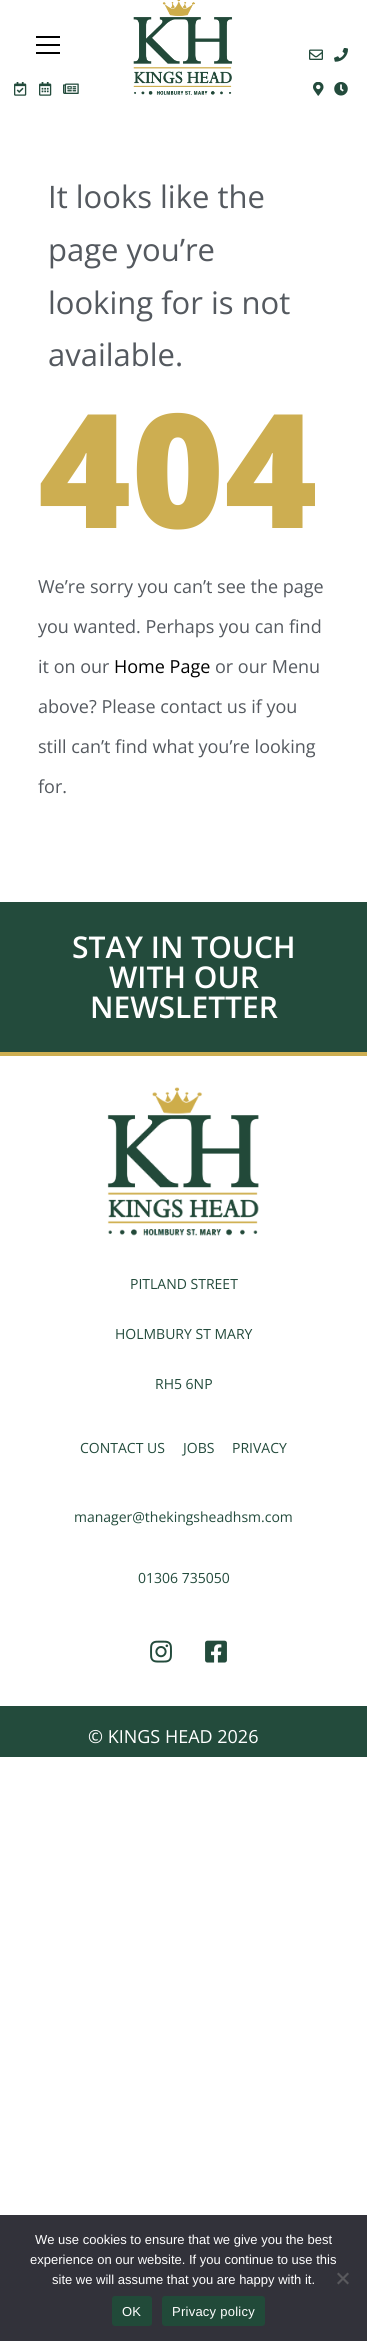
import math
import cairo

surface = cairo.ImageSurface(cairo.FORMAT_RGB24, 367, 2341)
ctx = cairo.Context(surface)
options = cairo.FontOptions()
options.set_hint_metrics(cairo.HINT_METRICS_OFF)
options.set_hint_style(cairo.HINT_STYLE_NONE)
ctx.set_font_options(options)
ctx.set_miter_limit(4)


def set_color(code):
    ctx.set_source_rgb(*(v / 255 for v in bytes.fromhex(code[-6:])))


def draw_text(x, y, s, family, size, color, bold=False, italic=False):
    ctx.select_font_face(family, cairo.FONT_SLANT_ITALIC if italic else cairo.FONT_SLANT_NORMAL, cairo.FONT_WEIGHT_BOLD if bold else cairo.FONT_WEIGHT_NORMAL)
    ctx.set_font_size(size)
    set_color(color)
    ctx.move_to(x, y)
    ctx.show_text(s)


def draw_spaced(x, y, s, letter, word):
    ctx.move_to(x, y)
    for ch in s:
        ctx.show_text(ch)
        ctx.rel_move_to(letter + word * (ch == ' '), 0)


def fill_rect(x, y, w, h, color):
    set_color(color)
    ctx.rectangle(x, y, w, h)
    ctx.fill()


def rounded_rect(x, y, w, h, r):
    ctx.new_sub_path()
    for i, (u, v) in enumerate([(x + w - r, y + h - r), (x + r, y + h - r), (x + r, y + r), (x + w - r, y + r)]):
        ctx.arc(u, v, r, i * math.pi / 2, (i + 1) * math.pi / 2)
    ctx.close_path()


def draw_image(path, x, y, w, h):
    ctx.save()
    ctx.set_source_surface(cairo.ImageSurface.create_from_png(path), x, y)
    ctx.rectangle(x, y, w, h)
    ctx.fill()
    ctx.restore()


set_color("#ffffff")
ctx.paint()
draw_image("assets/img1.png", 14, 82, 13, 14)
draw_image("assets/img2.png", 39, 82, 13, 14)
draw_image("assets/img3.png", 63, 83, 16, 11)
draw_image("assets/img4.png", 133, 0, 100, 95)
draw_image("assets/img5.png", 309, 49, 14, 11)
draw_image("assets/img6.png", 334, 48, 14, 14)
draw_image("assets/img7.png", 313, 82, 11, 14)
draw_image("assets/img8.png", 334, 82, 14, 14)
fill_rect(36, 36, 24, 2, "#000000")
fill_rect(36, 44, 24, 2, "#000000")
fill_rect(36, 52, 24, 2, "#000000")
draw_text(48, 208, "It looks like the", "Open Sans", 31, "#54595f")
draw_text(48, 261, "page you’re", "Open Sans", 31, "#54595f")
draw_text(48, 314, "looking for is not", "Open Sans", 31, "#54595f")
draw_text(48, 366, "available.", "Open Sans", 31, "#54595f")
draw_text(38, 528, "404", "Open Sans ExtraBold", 159, "#cdae51")
draw_text(38, 593, "We’re sorry you can’t see the page", "Open Sans", 18, "#54595f")
draw_text(38, 633, "you wanted. Perhaps you can find", "Open Sans", 18, "#54595f")
draw_text(38, 673, "it on our", "Open Sans", 18, "#54595f")
draw_text(114, 673, "Home Page", "Open Sans", 18, "#000000")
draw_text(215, 673, "or our Menu", "Open Sans", 18, "#54595f")
draw_text(38, 713, "above? Please contact us if you", "Open Sans", 18, "#54595f")
draw_text(38, 753, "still can’t find what you’re looking", "Open Sans", 18, "#54595f")
draw_text(38, 793, "for.", "Open Sans", 18, "#54595f")
fill_rect(0, 902, 367, 150, "#234b3c")
draw_text(72, 958, "STAY IN TOUCH", "Open Sans SemiBold", 30, "#ffffff")
draw_text(109, 988, "WITH OUR", "Open Sans SemiBold", 30, "#ffffff")
draw_text(90, 1018, "NEWSLETTER", "Open Sans SemiBold", 30, "#ffffff")
fill_rect(0, 1052, 367, 4, "#cdae51")
draw_image("assets/img9.png", 107, 1087, 152, 149)
draw_text(130, 1289, "PITLAND STREET", "Open Sans", 14, "#234b3c")
draw_text(115, 1339, "HOLMBURY ST MARY", "Open Sans", 14, "#234b3c")
draw_text(155, 1389, "RH5 6NP", "Open Sans", 14, "#234b3c")
draw_text(80, 1453, "CONTACT US", "Open Sans", 14, "#234b3c")
draw_text(183, 1453, "JOBS", "Open Sans", 14, "#234b3c")
draw_text(232, 1453, "PRIVACY", "Open Sans", 14, "#234b3c")
draw_text(74, 1522, "manager@thekingsheadhsm.com", "Open Sans", 14, "#234b3c")
draw_text(138, 1583, "01306 735050", "Open Sans", 14, "#234b3c")
draw_image("assets/img10.png", 150, 1640, 22, 23)
draw_image("assets/img11.png", 205, 1640, 22, 23)
fill_rect(0, 1706, 367, 51, "#234b3c")
draw_text(88, 1743, "© KINGS HEAD 2026", "Open Sans", 18, "#ffffff")
fill_rect(0, 2215, 367, 126, "#32323a")
draw_text(35, 2244, "We use cookies to ensure that we give you the best", "Liberation Sans", 13, "#ffffff")
draw_text(30, 2264, "experience on our website. If you continue to use this", "Liberation Sans", 13, "#ffffff")
draw_text(52, 2284, "site we will assume that you are happy with it.", "Liberation Sans", 13, "#ffffff")
set_color("#59595d")
ctx.new_path()
ctx.move_to(347.5, 2272.5)
ctx.line_to(349, 2274)
ctx.line_to(338.5, 2284.5)
ctx.line_to(337, 2283)
ctx.close_path()
ctx.fill()
ctx.new_path()
ctx.move_to(337, 2274)
ctx.line_to(338.5, 2272.5)
ctx.line_to(349, 2283)
ctx.line_to(347.5, 2284.5)
ctx.close_path()
ctx.fill()
set_color("#214a39")
rounded_rect(112, 2296, 40, 30, 3)
ctx.fill()
set_color("#ffffff")
draw_spaced(122, 2316, "OK", 0.25, 0)
set_color("#214a39")
rounded_rect(162, 2296, 103, 30, 3)
ctx.fill()
set_color("#ffffff")
draw_spaced(172, 2316, "Privacy policy", 0.25, 0)
surface.write_to_png("output.png")
